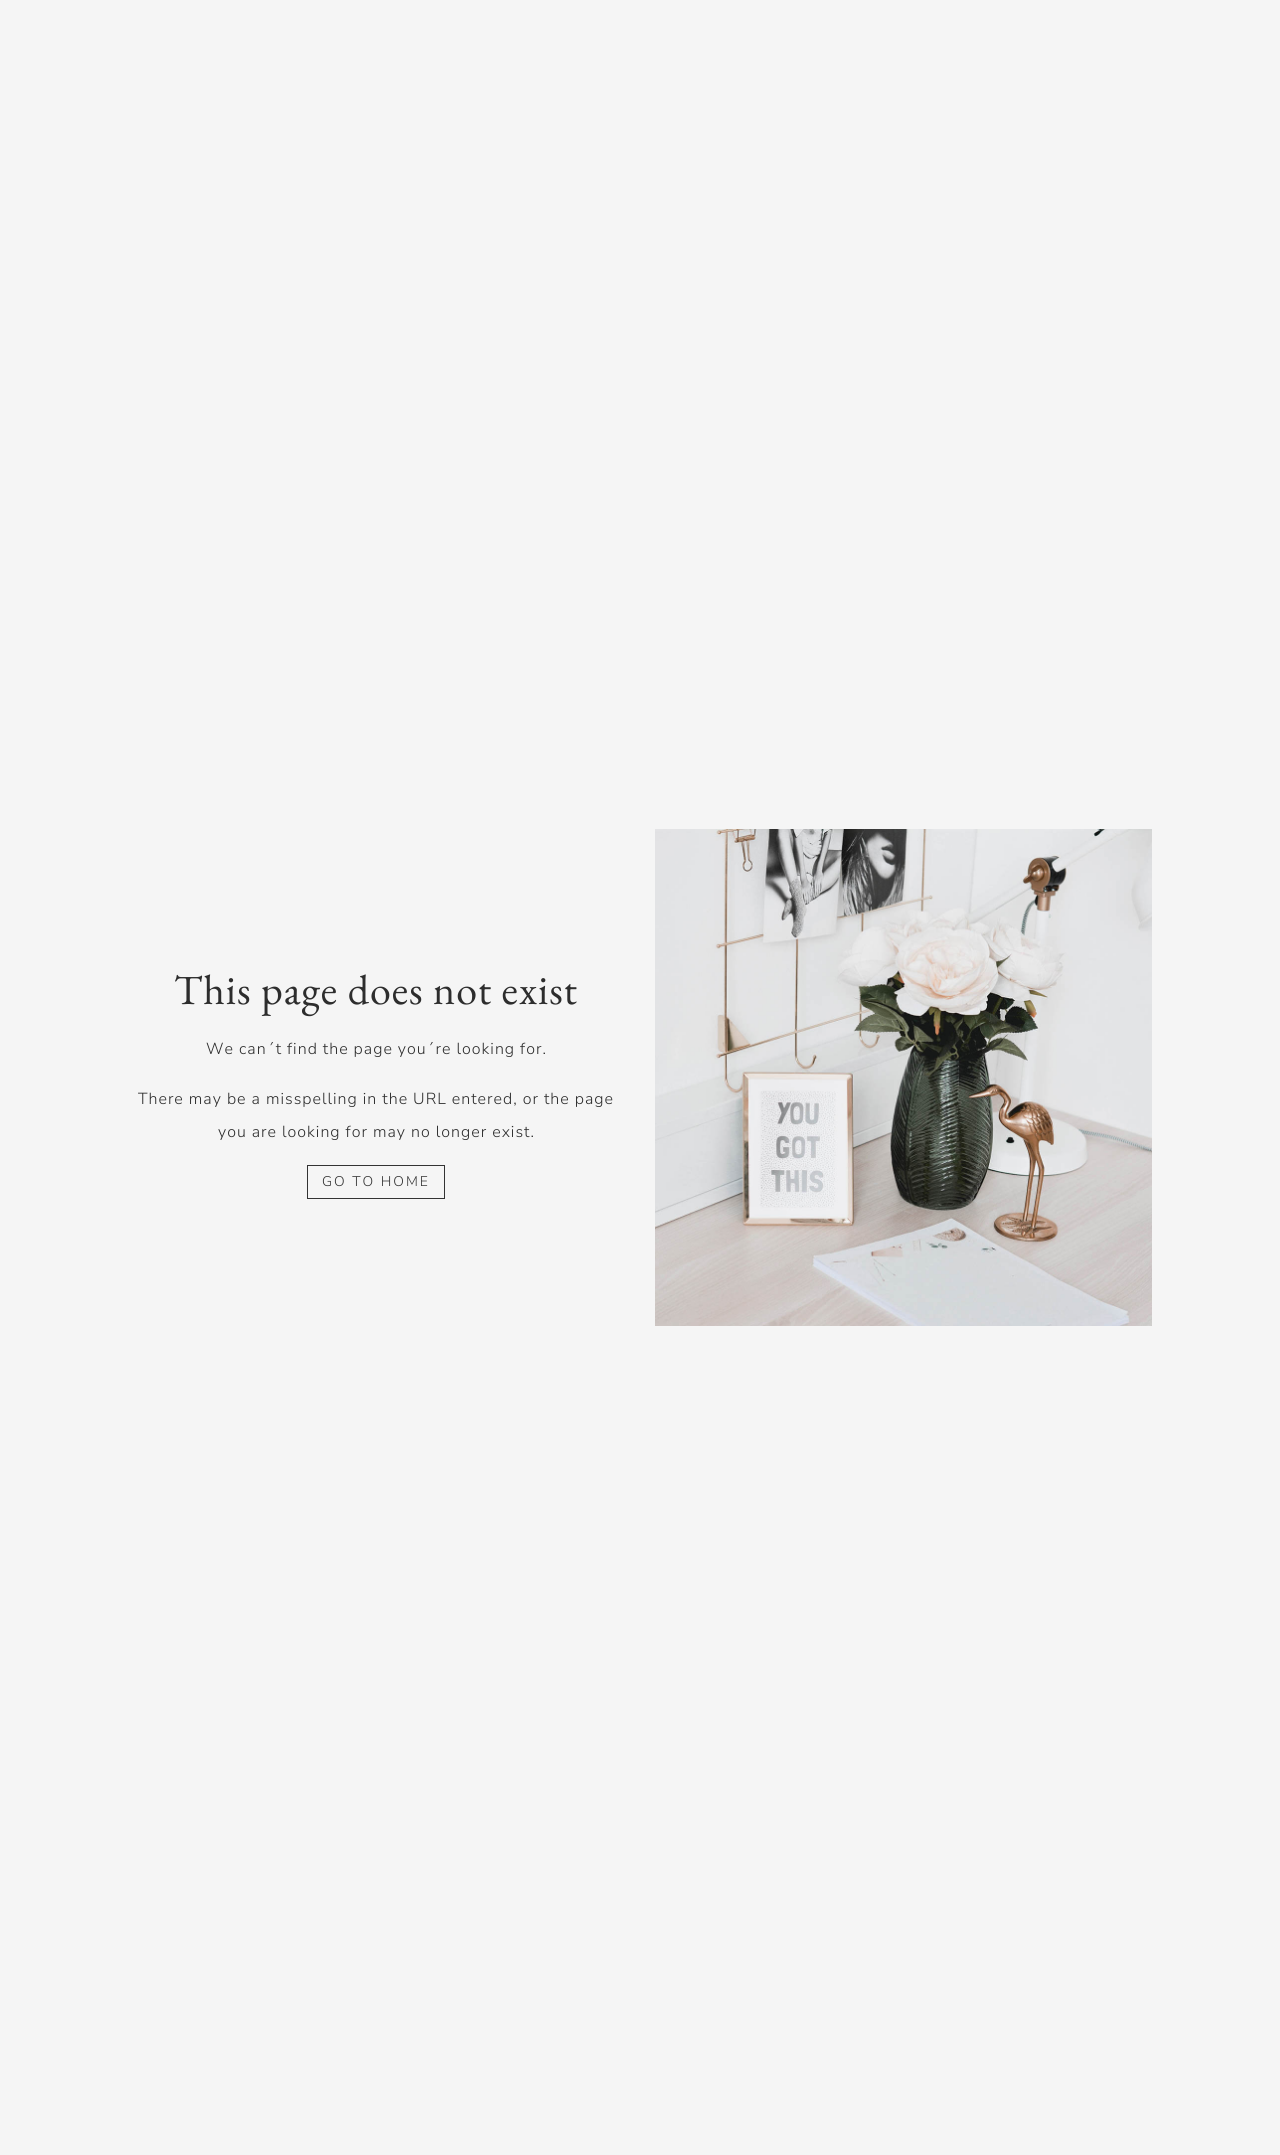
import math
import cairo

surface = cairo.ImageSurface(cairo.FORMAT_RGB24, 1280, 2155)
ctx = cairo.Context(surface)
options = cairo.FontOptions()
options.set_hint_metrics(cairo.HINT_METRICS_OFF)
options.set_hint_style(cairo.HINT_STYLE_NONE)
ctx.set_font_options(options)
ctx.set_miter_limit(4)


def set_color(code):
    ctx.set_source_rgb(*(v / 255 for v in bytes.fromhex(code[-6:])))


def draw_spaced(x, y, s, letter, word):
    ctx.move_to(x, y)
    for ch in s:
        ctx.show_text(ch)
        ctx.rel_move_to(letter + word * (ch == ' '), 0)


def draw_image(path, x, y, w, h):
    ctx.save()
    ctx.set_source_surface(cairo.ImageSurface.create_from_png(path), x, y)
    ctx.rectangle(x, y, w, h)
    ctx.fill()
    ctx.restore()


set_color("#f5f5f5")
ctx.paint()
ctx.select_font_face("EB Garamond")
ctx.set_font_size(42)
set_color("#2d2d2d")
draw_spaced(174, 1004, "This page does not exist", 1, 0)
ctx.select_font_face("Nunito Sans Light")
ctx.set_font_size(16)
draw_spaced(206, 1054, "We can´t find the page you´re looking for.", 1, 0)
draw_spaced(138, 1104, "There may be a misspelling in the URL entered, or the page", 1, 0)
draw_spaced(218, 1137, "you are looking for may no longer exist.", 1, 0)
ctx.rectangle(307.5, 1165.5, 137, 33)
set_color("#333333")
ctx.set_line_width(1)
ctx.stroke()
ctx.set_font_size(14)
draw_spaced(322, 1186, "GO TO HOME", 2, 0)
draw_image("assets/img1.png", 655, 829, 497, 497)
surface.write_to_png("output.png")
